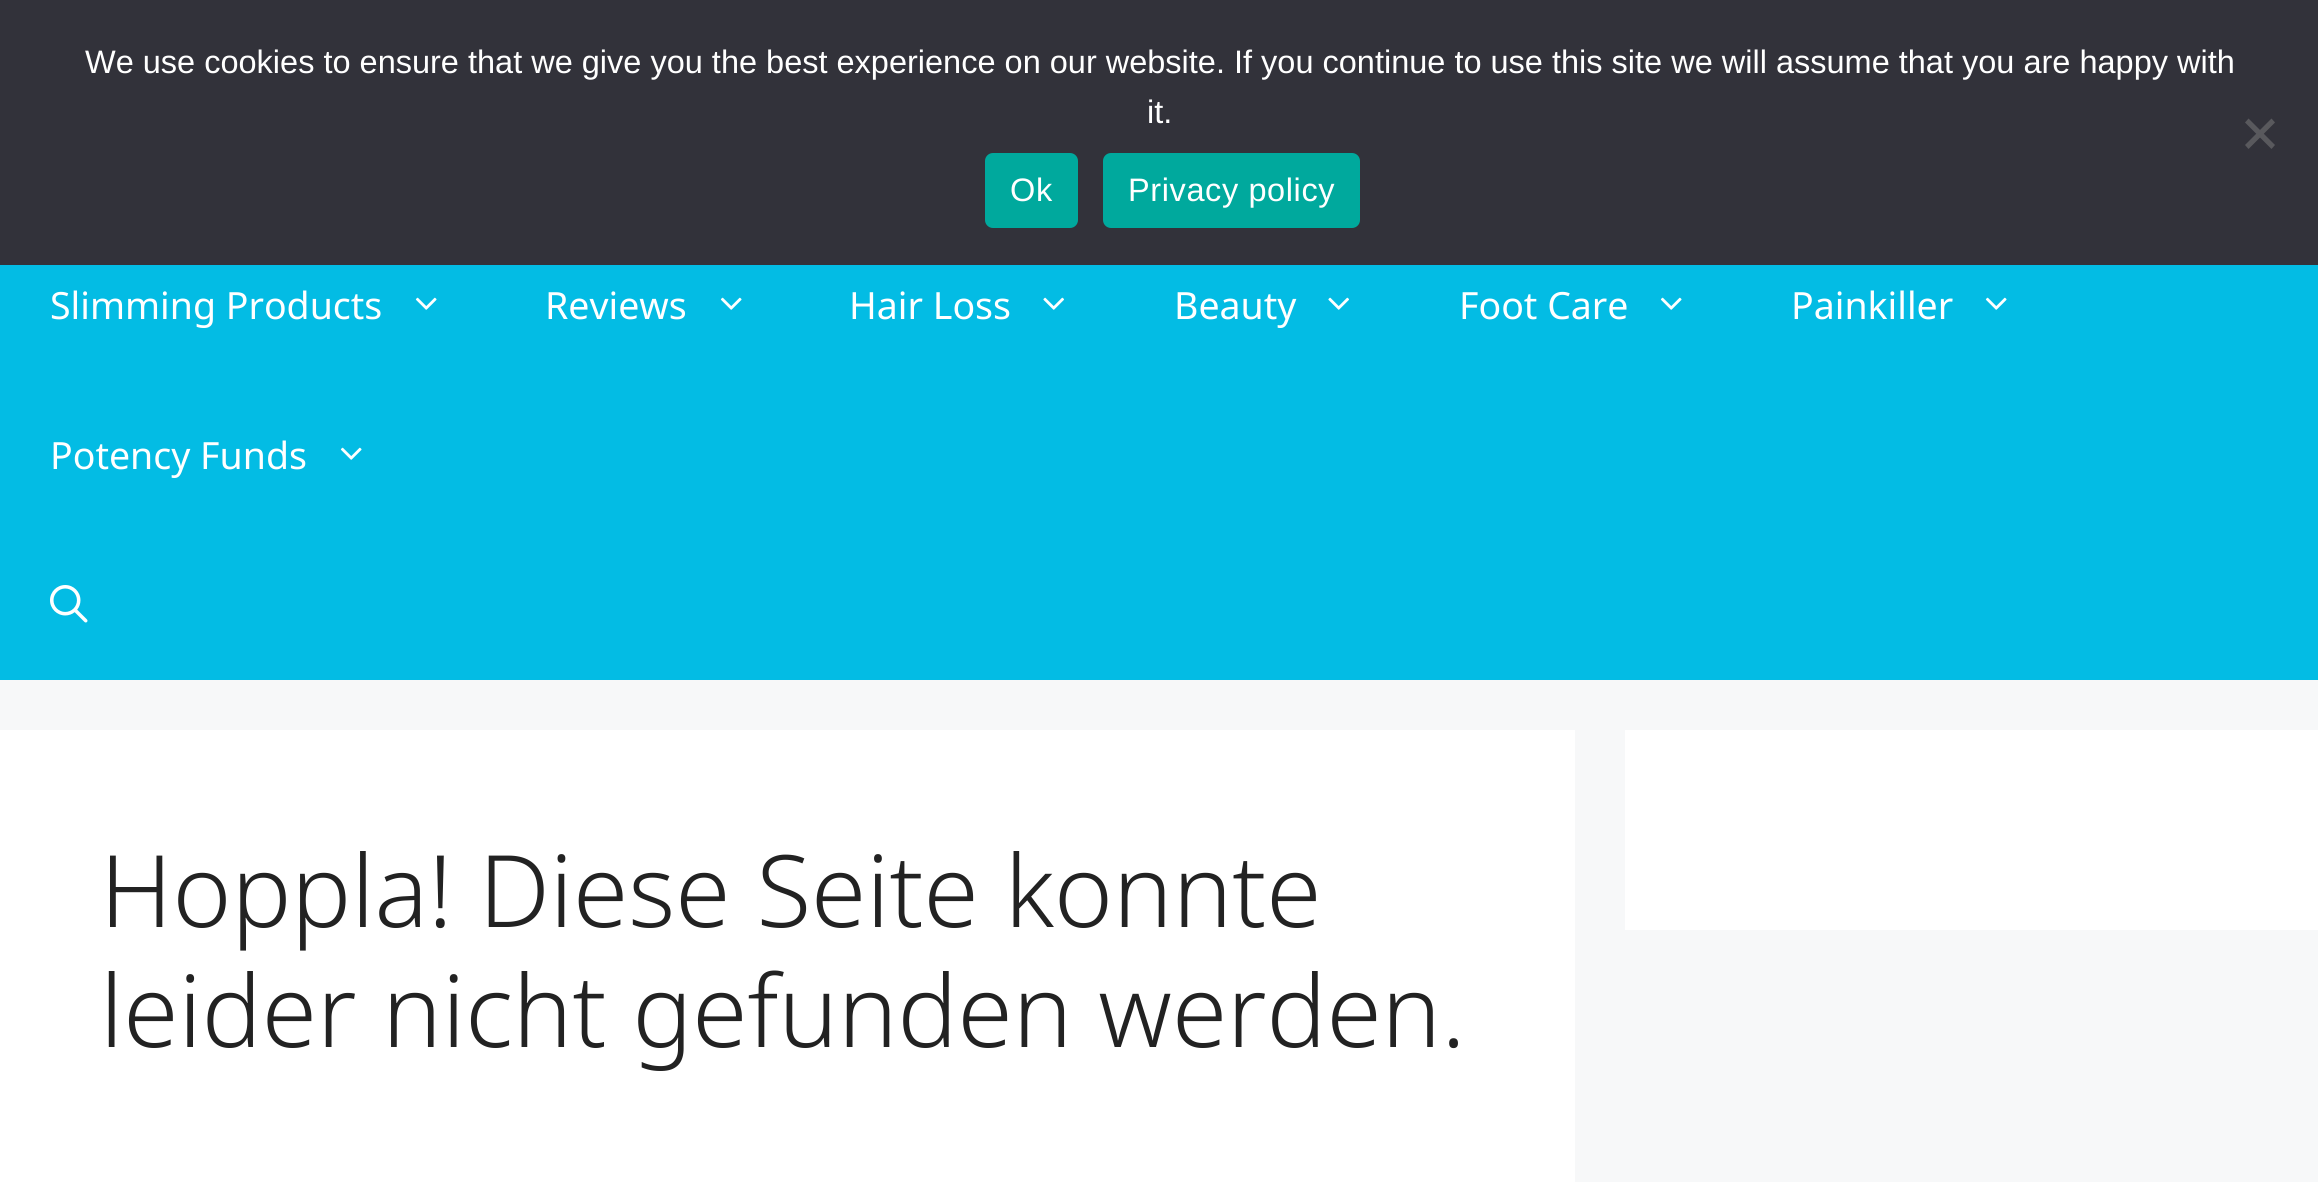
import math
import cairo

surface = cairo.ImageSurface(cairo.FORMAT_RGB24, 2318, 1182)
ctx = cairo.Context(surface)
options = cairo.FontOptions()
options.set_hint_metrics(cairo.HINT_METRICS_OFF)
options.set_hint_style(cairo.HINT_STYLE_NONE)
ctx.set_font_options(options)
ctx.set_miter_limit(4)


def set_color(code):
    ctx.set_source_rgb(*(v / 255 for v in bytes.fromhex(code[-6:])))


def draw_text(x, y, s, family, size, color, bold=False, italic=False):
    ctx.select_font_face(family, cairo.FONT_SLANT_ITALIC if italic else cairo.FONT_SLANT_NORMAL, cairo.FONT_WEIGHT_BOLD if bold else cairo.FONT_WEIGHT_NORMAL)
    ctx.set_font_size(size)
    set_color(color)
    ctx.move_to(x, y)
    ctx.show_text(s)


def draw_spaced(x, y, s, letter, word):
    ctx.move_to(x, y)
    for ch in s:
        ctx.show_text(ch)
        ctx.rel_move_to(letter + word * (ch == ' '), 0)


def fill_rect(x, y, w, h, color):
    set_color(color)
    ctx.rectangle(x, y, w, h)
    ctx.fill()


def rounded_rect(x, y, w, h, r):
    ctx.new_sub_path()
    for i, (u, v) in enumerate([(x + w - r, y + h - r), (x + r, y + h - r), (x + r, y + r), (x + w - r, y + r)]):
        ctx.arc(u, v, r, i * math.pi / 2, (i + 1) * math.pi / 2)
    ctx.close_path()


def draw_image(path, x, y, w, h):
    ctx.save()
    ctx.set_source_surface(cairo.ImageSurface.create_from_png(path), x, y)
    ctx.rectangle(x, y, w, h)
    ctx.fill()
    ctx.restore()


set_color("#f7f8f9")
ctx.paint()
fill_rect(0, 0, 2318, 265, "#32323a")
draw_text(85, 73, "We use cookies to ensure that we give you the best experience on our website. If you continue to use this site we will assume that you are happy with", "Liberation Sans", 32.5, "#ffffff")
draw_text(1147, 123, "it.", "Liberation Sans", 32.5, "#ffffff")
set_color("#59595d")
ctx.new_path()
ctx.move_to(2271.5, 118.5)
ctx.line_to(2275, 122.5)
ctx.line_to(2248.5, 149)
ctx.line_to(2245, 145)
ctx.close_path()
ctx.fill()
ctx.new_path()
ctx.move_to(2245, 122.5)
ctx.line_to(2248.5, 118.5)
ctx.line_to(2275, 145)
ctx.line_to(2271.5, 149)
ctx.close_path()
ctx.fill()
set_color("#00a99d")
rounded_rect(985, 153, 93, 75, 8)
ctx.fill()
set_color("#ffffff")
draw_spaced(1010, 201, "Ok", 0.6, 0)
set_color("#00a99d")
rounded_rect(1103, 153, 257, 75, 8)
ctx.fill()
set_color("#ffffff")
draw_spaced(1128, 201, "Privacy policy", 0.6, 0)
fill_rect(0, 265, 2318, 415, "#03bce4")
draw_text(50, 319, "Slimming Products", "Noto Sans", 37.5, "#ffffff")
draw_image("assets/img1.png", 415, 297, 22, 13)
draw_text(545, 319, "Reviews", "Noto Sans", 37.5, "#ffffff")
draw_image("assets/img1.png", 720, 297, 22, 13)
draw_text(849, 319, "Hair Loss", "Noto Sans", 37.5, "#ffffff")
draw_image("assets/img2.png", 1043, 297, 21, 13)
draw_text(1174, 319, "Beauty", "Noto Sans", 37.5, "#ffffff")
draw_image("assets/img2.png", 1328, 297, 21, 13)
draw_text(1459, 319, "Foot Care", "Noto Sans", 37.5, "#ffffff")
draw_image("assets/img1.png", 1660, 297, 22, 13)
draw_text(1791, 319, "Painkiller", "Noto Sans", 37.5, "#ffffff")
draw_image("assets/img1.png", 1985, 297, 22, 13)
draw_text(50, 469, "Potency Funds", "Noto Sans", 37.5, "#ffffff")
draw_image("assets/img1.png", 340, 447, 22, 13)
draw_image("assets/img3.png", 50, 585, 38, 38)
fill_rect(1625, 730, 693, 200, "#ffffff")
fill_rect(0, 730, 1575, 452, "#ffffff")
draw_text(100, 927, "Hoppla! Diese Seite konnte", "Noto Sans Light", 100, "#222222")
draw_text(100, 1047, "leider nicht gefunden werden.", "Noto Sans Light", 100, "#222222")
surface.write_to_png("output.png")
